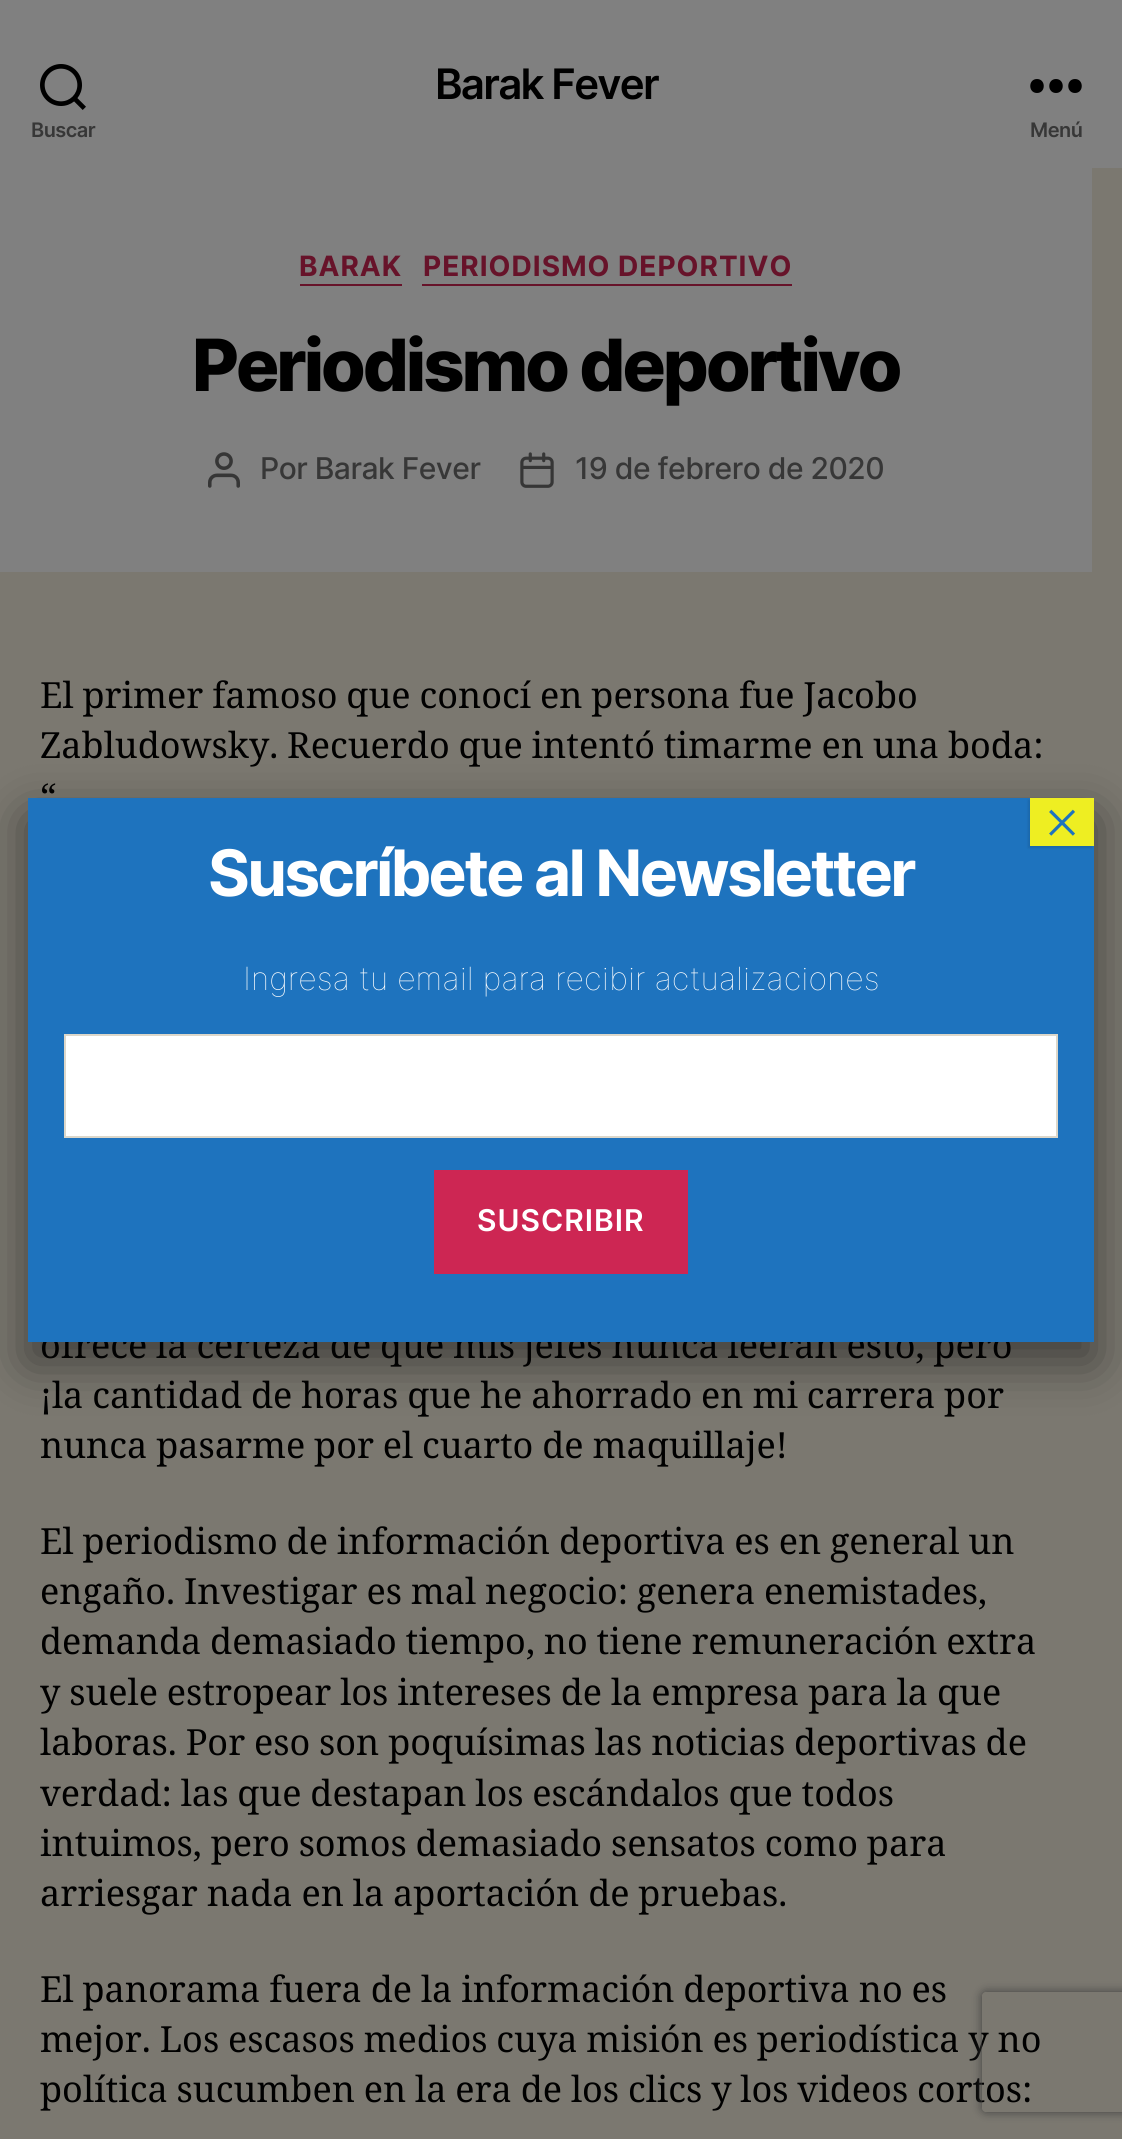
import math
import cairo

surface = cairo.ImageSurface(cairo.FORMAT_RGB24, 1122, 2139)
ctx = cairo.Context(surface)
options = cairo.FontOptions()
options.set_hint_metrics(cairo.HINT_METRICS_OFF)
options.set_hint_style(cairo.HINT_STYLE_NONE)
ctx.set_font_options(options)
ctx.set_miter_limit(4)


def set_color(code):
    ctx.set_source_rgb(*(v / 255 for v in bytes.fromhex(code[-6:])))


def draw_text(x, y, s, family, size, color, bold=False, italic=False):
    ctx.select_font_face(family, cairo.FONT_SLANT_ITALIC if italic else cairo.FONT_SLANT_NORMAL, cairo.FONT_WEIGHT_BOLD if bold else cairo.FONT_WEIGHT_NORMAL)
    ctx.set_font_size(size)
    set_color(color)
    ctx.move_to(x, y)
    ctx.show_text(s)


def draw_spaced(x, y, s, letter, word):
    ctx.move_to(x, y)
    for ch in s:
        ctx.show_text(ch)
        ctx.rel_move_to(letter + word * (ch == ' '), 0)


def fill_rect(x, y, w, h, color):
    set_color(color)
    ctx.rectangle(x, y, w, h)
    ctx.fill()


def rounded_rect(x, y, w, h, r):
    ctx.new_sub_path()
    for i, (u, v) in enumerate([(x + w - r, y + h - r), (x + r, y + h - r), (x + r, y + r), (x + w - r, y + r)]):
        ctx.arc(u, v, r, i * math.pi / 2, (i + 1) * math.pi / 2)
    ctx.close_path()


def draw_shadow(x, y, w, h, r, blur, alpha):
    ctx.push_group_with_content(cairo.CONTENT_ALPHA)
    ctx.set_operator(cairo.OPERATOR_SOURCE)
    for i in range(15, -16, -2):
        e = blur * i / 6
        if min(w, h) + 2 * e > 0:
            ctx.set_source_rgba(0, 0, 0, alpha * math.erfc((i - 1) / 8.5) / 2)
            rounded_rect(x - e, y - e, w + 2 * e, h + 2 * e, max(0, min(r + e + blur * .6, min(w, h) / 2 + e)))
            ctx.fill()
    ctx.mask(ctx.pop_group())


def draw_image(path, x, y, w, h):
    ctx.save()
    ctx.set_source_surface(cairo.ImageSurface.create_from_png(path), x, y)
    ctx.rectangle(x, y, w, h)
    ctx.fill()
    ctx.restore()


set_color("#7b7870")
ctx.paint()
fill_rect(0, 0, 1122, 168, "#808080")
ctx.select_font_face("Inter SemiBold")
ctx.set_font_size(42)
set_color("#000000")
draw_spaced(435, 99, "Barak Fever", -1.75, 0)
draw_image("assets/img1.png", 40, 64, 46, 46)
ctx.set_font_size(20)
set_color("#373737")
draw_spaced(31, 137, "Buscar", -0.5, 0)
set_color("#000000")
ctx.set_fill_rule(cairo.FILL_RULE_EVEN_ODD)
ctx.new_path()
ctx.move_to(1037, 93)
ctx.curve_to(1028, 93, 1028, 79, 1037, 79)
ctx.curve_to(1046, 79, 1046, 93, 1037, 93)
ctx.close_path()
ctx.move_to(1056, 93)
ctx.curve_to(1047, 93, 1047, 79, 1056, 79)
ctx.curve_to(1065, 79, 1065, 93, 1056, 93)
ctx.close_path()
ctx.move_to(1075, 93)
ctx.curve_to(1066, 93, 1066, 79, 1075, 79)
ctx.curve_to(1084, 79, 1084, 93, 1075, 93)
ctx.close_path()
ctx.fill()
set_color("#373737")
draw_spaced(1030, 137, "Menú", -0.5, 0)
fill_rect(0, 168, 1092, 404, "#808080")
fill_rect(300, 284, 102, 2, "#67132a")
ctx.select_font_face("Inter", cairo.FONT_SLANT_NORMAL, cairo.FONT_WEIGHT_BOLD)
ctx.set_font_size(28)
draw_spaced(299, 276, "BARAK", 1, 0)
fill_rect(422, 284, 370, 2, "#67132a")
draw_spaced(423, 276, "PERIODISMO DEPORTIVO", 1, 0)
ctx.select_font_face("Inter ExtraBold")
ctx.set_font_size(72)
set_color("#000000")
draw_spaced(192, 391, "Periodismo deportivo", -3, 0)
draw_image("assets/img2.png", 208, 452, 32, 36)
ctx.select_font_face("Inter Medium")
ctx.set_font_size(30)
set_color("#373737")
draw_spaced(260, 479, "Por Barak Fever", -0.5, 0)
draw_image("assets/img3.png", 520, 452, 34, 36)
draw_spaced(575, 479, "19 de febrero de 2020", -0.5, 0)
ctx.select_font_face("Noto Serif")
ctx.set_font_size(36)
set_color("#000000")
draw_spaced(40, 708, "El primer famoso que conocí en persona fue Jacobo", 0, -0.5)
draw_spaced(40, 758, "Zabludowsky. Recuerdo que intentó timarme en una boda:", 0, -0.5)
draw_spaced(40, 809, "“", 0, -0.5)
draw_spaced(40, 1358, "ofrece la certeza de que mis jefes nunca leerán esto, pero", 0, -0.5)
draw_spaced(40, 1408, "¡la cantidad de horas que he ahorrado en mi carrera por", 0, -0.5)
draw_spaced(40, 1458, "nunca pasarme por el cuarto de maquillaje!", 0, -0.5)
draw_spaced(40, 1554, "El periodismo de información deportiva es en general un", 0, -0.5)
draw_spaced(40, 1604, "engaño. Investigar es mal negocio: genera enemistades,", 0, -0.5)
draw_spaced(40, 1654, "demanda demasiado tiempo, no tiene remuneración extra", 0, -0.5)
draw_spaced(40, 1705, "y suele estropear los intereses de la empresa para la que", 0, -0.5)
draw_spaced(40, 1755, "laboras. Por eso son poquísimas las noticias deportivas de", 0, -0.5)
draw_spaced(40, 1806, "verdad: las que destapan los escándalos que todos", 0, -0.5)
draw_spaced(40, 1856, "intuimos, pero somos demasiado sensatos como para", 0, -0.5)
draw_spaced(40, 1906, "arriesgar nada en la aportación de pruebas.", 0, -0.5)
draw_spaced(40, 2002, "El panorama fuera de la información deportiva no es", 0, -0.5)
draw_spaced(40, 2052, "mejor. Los escasos medios cuya misión es periodística y no", 0, -0.5)
draw_spaced(40, 2102, "política sucumben en la era de los clics y los videos cortos:", 0, -0.5)
set_color("#020202")
draw_shadow(28, 818, 1066, 544, 0, 25, 0.5)
fill_rect(28, 798, 1066, 544, "#1e73be")
set_color("#020202")
draw_shadow(1028, 800, 64, 48, 0, 1, 0.1)
fill_rect(1030, 798, 64, 48, "#eeee22")
draw_text(1044, 844, "×", "Liberation Serif", 64, "#1e73be")
ctx.select_font_face("Inter", cairo.FONT_SLANT_NORMAL, cairo.FONT_WEIGHT_BOLD)
set_color("#ffffff")
draw_spaced(208, 896, "Suscríbete al Newsletter", -2.7, 0)
draw_text(243, 990, "Ingresa tu email para recibir actualizaciones", "Inter Thin", 32, "#ffffff")
ctx.rectangle(65, 1035, 992, 102)
ctx.fill_preserve()
set_color("#dcd7ca")
ctx.stroke()
fill_rect(434, 1170, 254, 104, "#cd2653")
ctx.select_font_face("Inter SemiBold")
ctx.set_font_size(30)
set_color("#ffffff")
draw_spaced(477, 1231, "SUSCRIBIR", 1, 0)
ctx.save()
ctx.new_path()
ctx.move_to(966, 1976)
ctx.line_to(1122, 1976)
ctx.line_to(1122, 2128)
ctx.line_to(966, 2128)
ctx.close_path()
ctx.move_to(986, 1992)
ctx.line_to(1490, 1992)
ctx.curve_to(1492, 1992, 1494, 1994, 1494, 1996)
ctx.line_to(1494, 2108)
ctx.curve_to(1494, 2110, 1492, 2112, 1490, 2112)
ctx.line_to(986, 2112)
ctx.curve_to(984, 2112, 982, 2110, 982, 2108)
ctx.line_to(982, 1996)
ctx.curve_to(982, 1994, 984, 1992, 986, 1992)
ctx.close_path()
ctx.clip()
set_color("#404040")
draw_shadow(982, 1992, 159, 120, 4, 5, 1)
ctx.restore()
surface.write_to_png("output.png")
